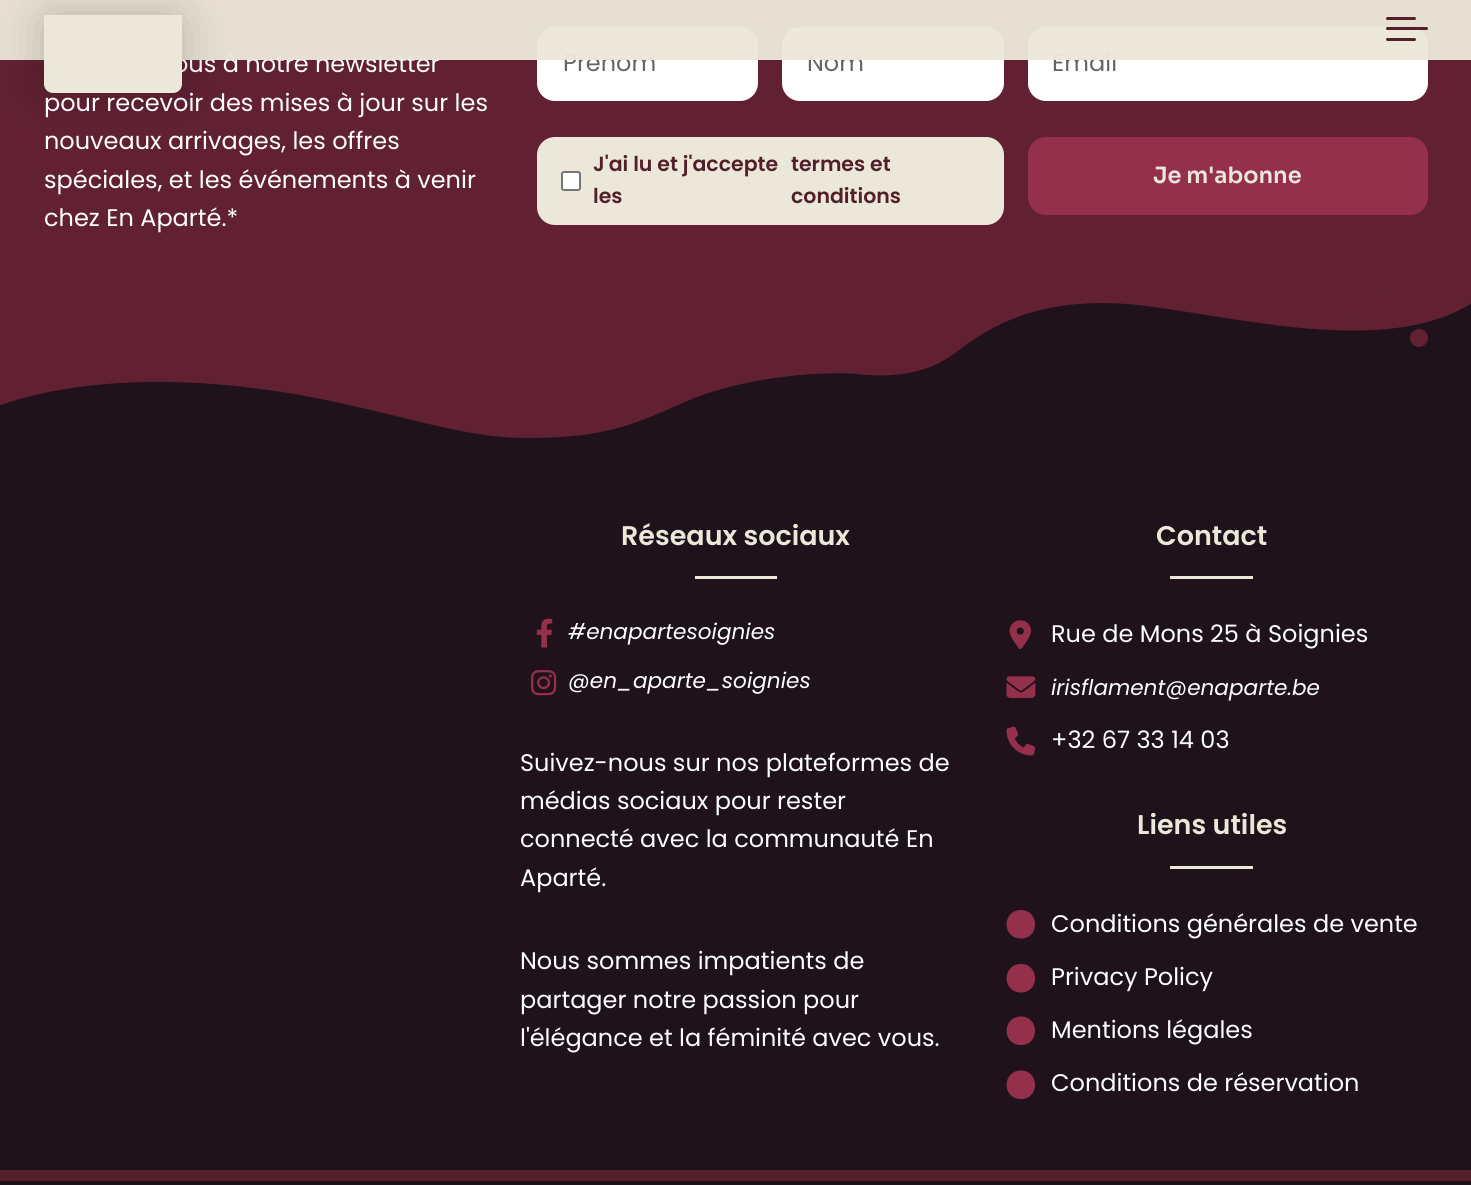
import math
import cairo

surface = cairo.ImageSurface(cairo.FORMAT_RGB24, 1471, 1185)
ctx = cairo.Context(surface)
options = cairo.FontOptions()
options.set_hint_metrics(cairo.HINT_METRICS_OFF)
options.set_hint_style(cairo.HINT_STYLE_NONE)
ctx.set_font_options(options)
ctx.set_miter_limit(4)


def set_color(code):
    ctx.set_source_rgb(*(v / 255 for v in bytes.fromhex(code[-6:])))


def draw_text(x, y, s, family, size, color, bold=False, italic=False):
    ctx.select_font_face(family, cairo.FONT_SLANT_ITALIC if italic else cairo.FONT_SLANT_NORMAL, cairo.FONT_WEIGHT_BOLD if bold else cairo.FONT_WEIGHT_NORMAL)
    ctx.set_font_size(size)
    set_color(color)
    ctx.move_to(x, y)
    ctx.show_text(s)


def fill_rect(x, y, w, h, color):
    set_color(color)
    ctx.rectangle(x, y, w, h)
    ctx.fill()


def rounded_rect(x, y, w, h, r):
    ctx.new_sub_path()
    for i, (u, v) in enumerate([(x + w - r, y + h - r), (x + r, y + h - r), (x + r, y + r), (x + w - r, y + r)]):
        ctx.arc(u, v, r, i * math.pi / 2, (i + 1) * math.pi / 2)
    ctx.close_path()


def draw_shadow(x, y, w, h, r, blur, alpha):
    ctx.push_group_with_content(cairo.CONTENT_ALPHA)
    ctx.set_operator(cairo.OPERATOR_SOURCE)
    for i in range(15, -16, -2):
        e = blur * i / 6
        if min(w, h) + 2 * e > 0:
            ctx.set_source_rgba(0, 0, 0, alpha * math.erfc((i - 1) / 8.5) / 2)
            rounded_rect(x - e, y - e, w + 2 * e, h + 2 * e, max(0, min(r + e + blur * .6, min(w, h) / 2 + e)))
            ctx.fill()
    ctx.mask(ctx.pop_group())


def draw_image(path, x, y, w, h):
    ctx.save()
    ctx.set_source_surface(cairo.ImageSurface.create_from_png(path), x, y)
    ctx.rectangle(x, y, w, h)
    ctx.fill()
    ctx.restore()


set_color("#612133")
ctx.paint()
draw_text(173, 72, "ous à notre newsletter", "Poppins", 24, "#ffffff")
rounded_rect(538, 28, 219, 72, 17)
ctx.fill_preserve()
ctx.stroke()
draw_text(563, 71, "Prénom", "Poppins", 24, "#656565")
set_color("#ffffff")
rounded_rect(783, 28, 220, 72, 17)
ctx.fill_preserve()
ctx.stroke()
draw_text(807, 71, "Nom", "Poppins", 24, "#656565")
set_color("#ffffff")
rounded_rect(1029, 28, 398, 72, 17)
ctx.fill_preserve()
ctx.stroke()
draw_text(1052, 71, "Email", "Poppins", 24, "#656565")
ctx.set_source_rgba(0.922, 0.906, 0.847, 0.96)
ctx.rectangle(0, 0, 1471, 60)
ctx.fill()
set_color("#000000")
draw_shadow(44, 15, 138, 78, 9, 22.5, 0.2)
draw_text(44, 111, "pour recevoir des mises à jour sur les", "Poppins", 24, "#ffffff")
set_color("#ebe8d9")
ctx.new_path()
ctx.move_to(44, 15)
ctx.line_to(182, 15)
ctx.line_to(182, 84)
ctx.curve_to(182, 89, 178, 93, 173, 93)
ctx.line_to(53, 93)
ctx.curve_to(48, 93, 44, 89, 44, 84)
ctx.close_path()
ctx.fill()
set_color("#531f2b")
rounded_rect(1386, 27, 42, 3, 1.5)
ctx.fill()
rounded_rect(1386, 17, 30, 3, 1.5)
ctx.fill()
rounded_rect(1386, 38, 30, 3, 1.5)
ctx.fill()
draw_text(44, 149, "nouveaux arrivages, les offres", "Poppins", 24, "#ffffff")
draw_text(44, 188, "spéciales, et les événements à venir", "Poppins", 24, "#ffffff")
draw_text(44, 226, "chez En Aparté.*", "Poppins", 24, "#ffffff")
set_color("#ebe8d9")
rounded_rect(537, 137, 467, 88, 18)
ctx.fill()
set_color("#ffffff")
rounded_rect(562, 172, 18, 18, 2)
ctx.fill_preserve()
set_color("#767676")
ctx.stroke()
draw_text(593, 171, "J'ai lu et j'accepte", "Poppins SemiBold", 20.5, "#531f2b")
draw_text(791, 171, "termes et", "Poppins SemiBold", 20.5, "#531f2b")
draw_text(791, 203, "conditions", "Poppins SemiBold", 20.5, "#531f2b")
draw_text(593, 203, "les", "Poppins SemiBold", 20.5, "#531f2b")
set_color("#942f4c")
rounded_rect(1028, 137, 400, 78, 18)
ctx.fill()
draw_text(1153, 183, "Je m'abonne", "Sora SemiBold", 22.5, "#ebe8d9")
ctx.save()
ctx.rectangle(0, 237, 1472, 218)
ctx.clip()
set_color("#1f121b")
ctx.new_path()
ctx.move_to(-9, 465)
ctx.line_to(-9, 409)
ctx.curve_to(-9, 409, 66, 373, 213, 384)
ctx.curve_to(358, 395, 441, 438, 526, 438)
ctx.curve_to(612, 438, 638, 422, 687, 401)
ctx.curve_to(756, 372, 840, 372, 857, 374)
ctx.curve_to(874, 376, 920, 380, 955, 353)
ctx.curve_to(990, 326, 1042, 293, 1147, 306)
ctx.curve_to(1253, 320, 1398, 358, 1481, 297)
ctx.line_to(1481, 465)
ctx.close_path()
ctx.fill()
ctx.restore()
set_color("#612133")
ctx.arc(1419, 338, 9, 0, 2 * math.pi)
ctx.fill()
ctx.save()
ctx.rectangle(1355, 290, 73, 58)
ctx.clip()
ctx.arc(1374.5, 309.5, 20, 0, 2 * math.pi)
ctx.fill()
ctx.restore()
fill_rect(0, 455, 1471, 715, "#1f121b")
draw_text(621, 545, "Réseaux sociaux", "Poppins SemiBold", 27, "#ebe8d9")
fill_rect(695, 576, 82, 3, "#ebe8d9")
draw_image("assets/img1.png", 536, 618, 17, 30)
draw_text(568, 639, "#enapartesoignies", "Poppins", 21.6, "#ffffff", italic=True)
draw_image("assets/img2.png", 531, 670, 26, 26)
draw_text(568, 688, "@en_aparte_soignies", "Poppins", 21.6, "#ffffff", italic=True)
draw_text(520, 771, "Suivez-nous sur nos plateformes de", "Poppins", 24, "#ffffff")
draw_text(520, 809, "médias sociaux pour rester", "Poppins", 24, "#ffffff")
draw_text(520, 847, "connecté avec la communauté En", "Poppins", 24, "#ffffff")
draw_text(520, 886, "Aparté.", "Poppins", 24, "#ffffff")
draw_text(520, 969, "Nous sommes impatients de", "Poppins", 24, "#ffffff")
draw_text(520, 1008, "partager notre passion pour", "Poppins", 24, "#ffffff")
draw_text(520, 1046, "l'élégance et la féminité avec vous.", "Poppins", 24, "#ffffff")
draw_text(1156, 545, "Contact", "Poppins SemiBold", 27, "#ebe8d9")
fill_rect(1170, 576, 83, 3, "#ebe8d9")
draw_image("assets/img3.png", 1009, 620, 23, 29)
draw_text(1051, 642, "Rue de Mons 25 à Soignies", "Poppins", 24, "#ffffff")
draw_image("assets/img4.png", 1006, 676, 30, 22)
draw_text(1051, 695, "irisflament@enaparte.be", "Poppins", 21.6, "#ffffff", italic=True)
draw_image("assets/img5.png", 1006, 726, 30, 30)
draw_text(1051, 748, "+32 67 33 14 03", "Poppins", 24, "#ffffff")
draw_text(1137, 834, "Liens utiles", "Poppins SemiBold", 27, "#ebe8d9")
fill_rect(1170, 866, 83, 3, "#ebe8d9")
set_color("#942f4c")
ctx.new_path()
ctx.move_to(1021, 938.5)
ctx.curve_to(1040, 938.5, 1039.5, 910, 1021, 910)
ctx.curve_to(1002, 910, 1001.5, 938.5, 1021, 938.5)
ctx.close_path()
ctx.fill()
draw_text(1051, 932, "Conditions générales de vente", "Poppins", 24, "#ffffff")
set_color("#942f4c")
ctx.new_path()
ctx.move_to(1021, 992.5)
ctx.curve_to(1040, 992.5, 1039.5, 964, 1021, 964)
ctx.curve_to(1002, 964, 1001.5, 992.5, 1021, 992.5)
ctx.close_path()
ctx.fill()
draw_text(1051, 985, "Privacy Policy", "Poppins", 24, "#ffffff")
set_color("#942f4c")
ctx.new_path()
ctx.move_to(1021, 1045)
ctx.curve_to(1040, 1045, 1039.5, 1016.5, 1021, 1016.5)
ctx.curve_to(1002, 1016.5, 1001.5, 1045, 1021, 1045)
ctx.close_path()
ctx.fill()
draw_text(1051, 1038, "Mentions légales", "Poppins", 24, "#ffffff")
set_color("#942f4c")
ctx.new_path()
ctx.move_to(1021, 1099)
ctx.curve_to(1040, 1099, 1039.5, 1070.5, 1021, 1070.5)
ctx.curve_to(1002, 1070.5, 1001.5, 1099, 1021, 1099)
ctx.close_path()
ctx.fill()
draw_text(1051, 1091, "Conditions de réservation", "Poppins", 24, "#ffffff")
fill_rect(0, 1181, 1471, 4, "#1f121b")
fill_rect(0, 1170, 1471, 11, "#531f2b")
surface.write_to_png("output.png")
